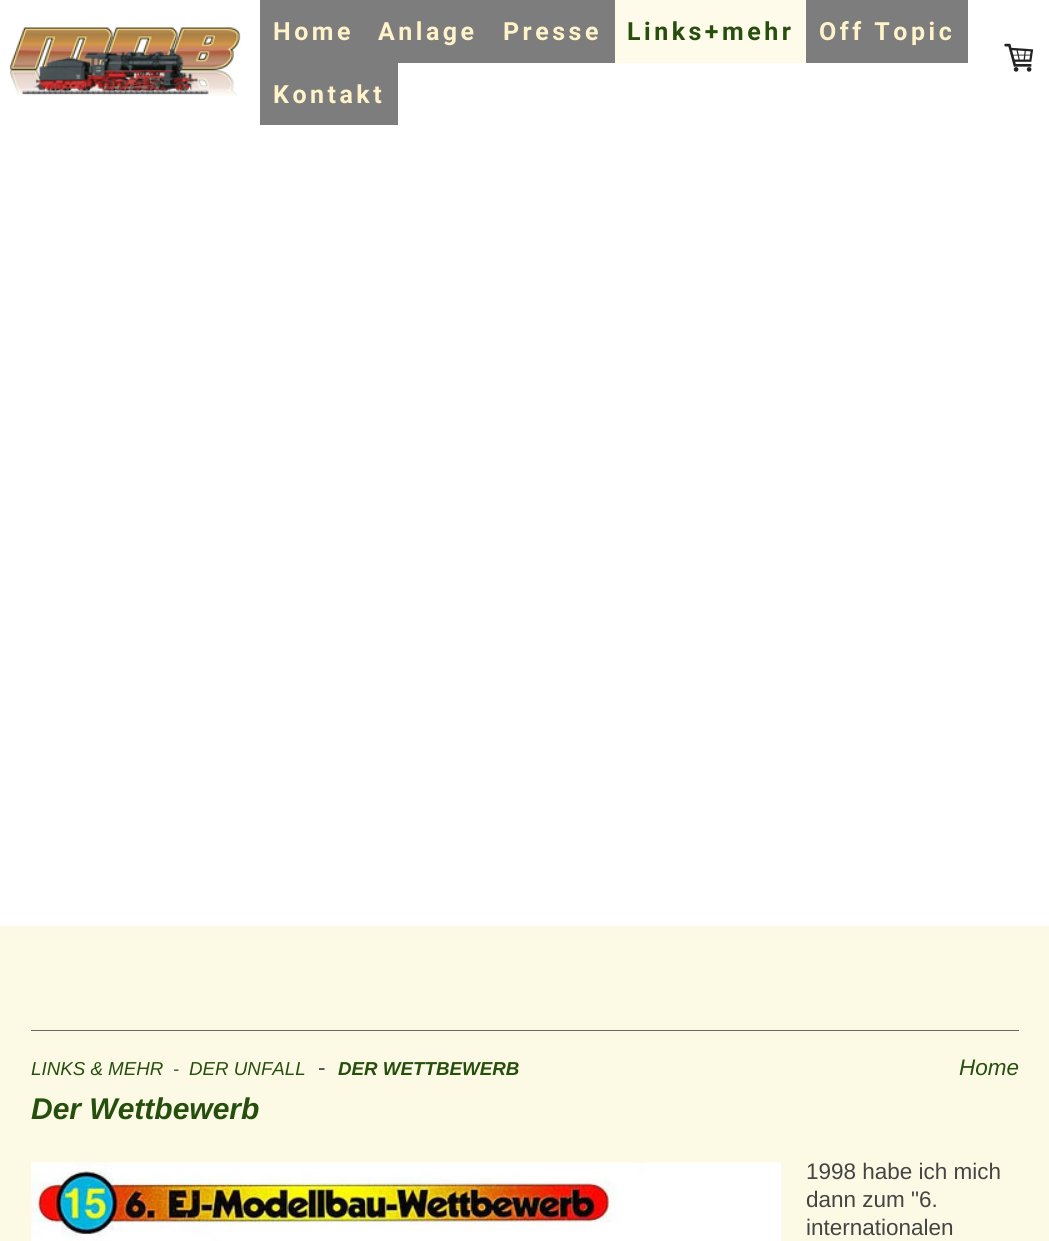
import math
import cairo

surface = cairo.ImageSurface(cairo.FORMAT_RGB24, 1049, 1241)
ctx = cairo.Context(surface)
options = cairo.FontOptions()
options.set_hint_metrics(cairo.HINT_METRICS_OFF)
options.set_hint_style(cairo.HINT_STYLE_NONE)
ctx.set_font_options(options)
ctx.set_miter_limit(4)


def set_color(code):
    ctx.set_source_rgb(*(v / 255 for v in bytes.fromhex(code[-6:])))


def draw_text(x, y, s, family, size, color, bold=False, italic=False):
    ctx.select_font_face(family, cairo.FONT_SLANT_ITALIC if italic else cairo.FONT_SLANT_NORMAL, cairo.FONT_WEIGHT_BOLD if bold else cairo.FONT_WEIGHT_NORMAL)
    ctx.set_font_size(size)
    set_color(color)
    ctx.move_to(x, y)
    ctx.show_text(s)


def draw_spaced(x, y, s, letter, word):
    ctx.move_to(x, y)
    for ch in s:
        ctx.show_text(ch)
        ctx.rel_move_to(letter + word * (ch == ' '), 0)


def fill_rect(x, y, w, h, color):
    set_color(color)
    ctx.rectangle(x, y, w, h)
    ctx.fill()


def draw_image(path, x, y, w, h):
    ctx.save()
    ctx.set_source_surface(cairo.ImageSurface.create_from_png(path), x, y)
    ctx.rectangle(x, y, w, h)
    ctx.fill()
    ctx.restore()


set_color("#ffffff")
ctx.paint()
draw_image("assets/img1.png", 9, 27, 232, 69)
fill_rect(260, 0, 355, 63, "#7d7d7d")
ctx.select_font_face("Roboto", cairo.FONT_SLANT_NORMAL, cairo.FONT_WEIGHT_BOLD)
ctx.set_font_size(25)
set_color("#fff3ca")
draw_spaced(273, 40, "Home", 3.5, 0)
draw_spaced(378, 40, "Anlage", 3.5, 0)
draw_spaced(503, 40, "Presse", 3.5, 0)
fill_rect(615, 0, 191, 63, "#fffbea")
set_color("#264f0e")
draw_spaced(627, 40, "Links+mehr", 3.5, 0)
fill_rect(806, 0, 162, 63, "#7d7d7d")
set_color("#fff3ca")
draw_spaced(819, 40, "Off Topic", 3.5, 0)
fill_rect(260, 63, 138, 62, "#7d7d7d")
set_color("#fff3ca")
draw_spaced(273, 103, "Kontakt", 3.5, 0)
draw_image("assets/img2.png", 1004, 43, 30, 29)
fill_rect(0, 926, 1049, 315, "#fcfae5")
fill_rect(31, 1030, 988, 1, "#666666")
draw_text(31, 1075, "LINKS & MEHR", "Liberation Sans", 18.75, "#264f0e", italic=True)
draw_text(173, 1075, "-", "Liberation Sans", 18, "#444444", italic=True)
draw_text(189, 1075, "DER UNFALL", "Liberation Sans", 18.75, "#264f0e", italic=True)
draw_text(318, 1075, "-", "Liberation Sans", 22.5, "#444444")
draw_text(338, 1075, "DER WETTBEWERB", "Liberation Sans", 18.75, "#264f0e", bold=True, italic=True)
draw_text(959, 1075, "Home", "Liberation Sans", 22.5, "#264f0e", italic=True)
draw_text(31, 1119, "Der Wettbewerb", "Liberation Sans", 30, "#264f0e", bold=True, italic=True)
draw_image("assets/img3.png", 31, 1162, 751, 79)
draw_text(806, 1179, "1998 habe ich mich", "Liberation Sans", 22.5, "#444444")
draw_text(806, 1207, "dann zum \"6.", "Liberation Sans", 22.5, "#444444")
draw_text(806, 1235, "internationalen", "Liberation Sans", 22.5, "#444444")
surface.write_to_png("output.png")
